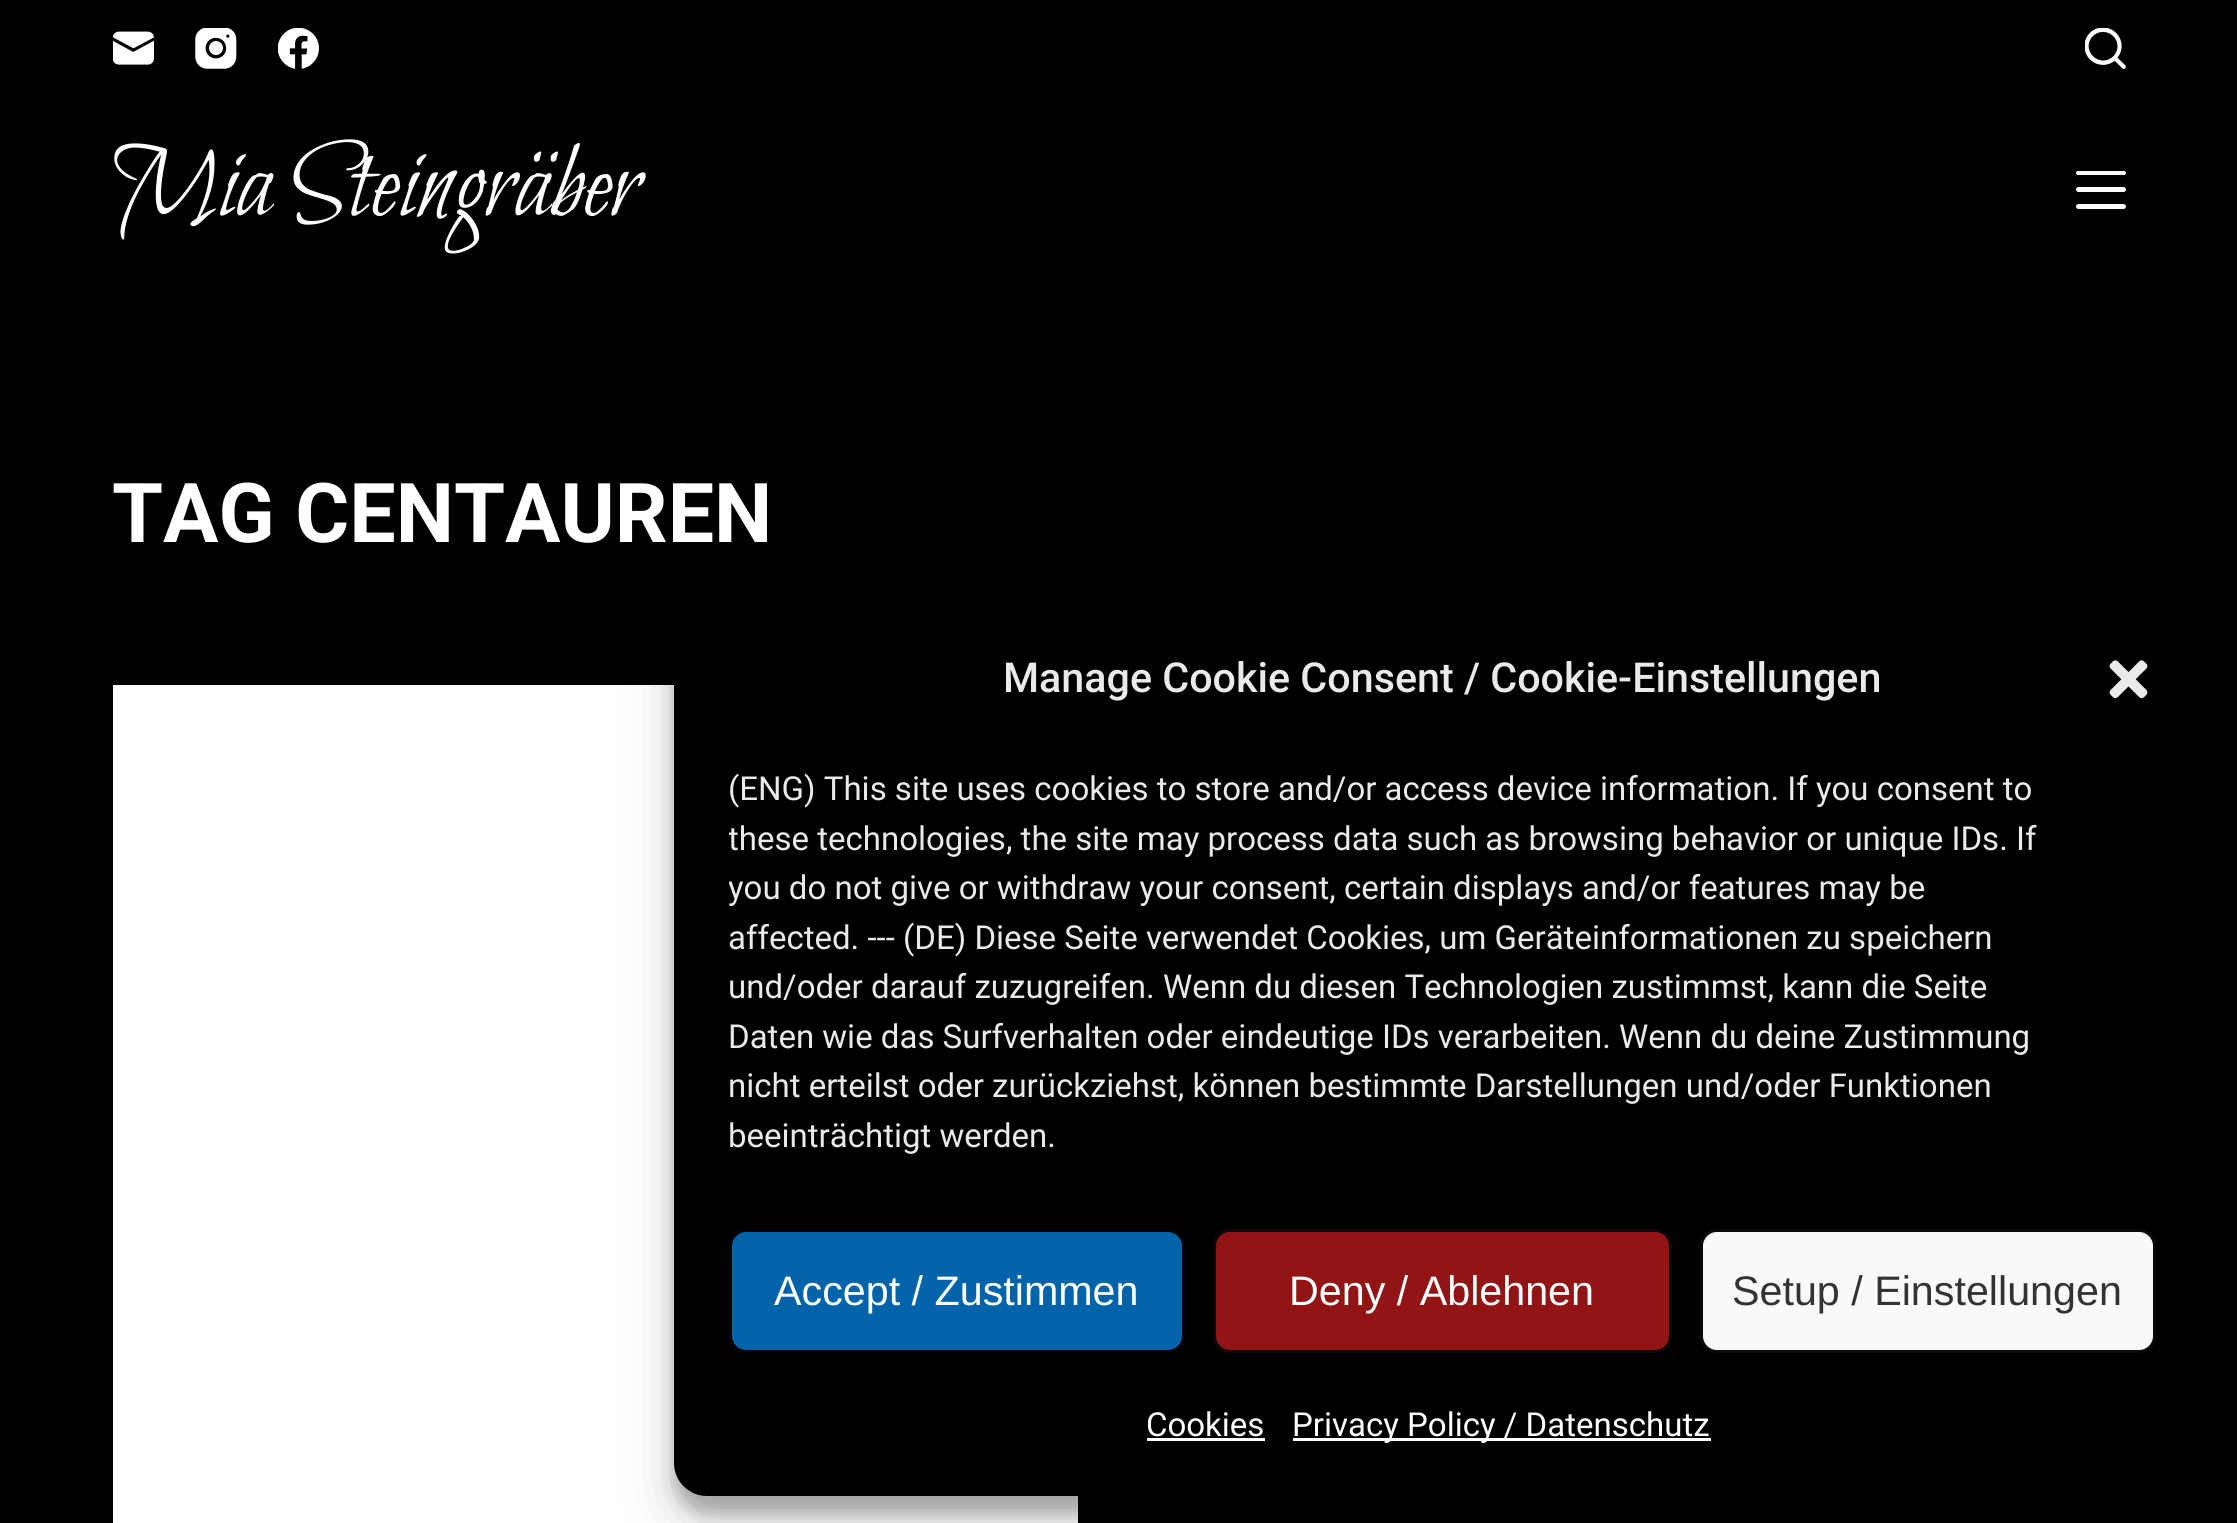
import math
import cairo

surface = cairo.ImageSurface(cairo.FORMAT_RGB24, 2237, 1523)
ctx = cairo.Context(surface)
options = cairo.FontOptions()
options.set_hint_metrics(cairo.HINT_METRICS_OFF)
options.set_hint_style(cairo.HINT_STYLE_NONE)
ctx.set_font_options(options)
ctx.set_miter_limit(4)


def set_color(code):
    ctx.set_source_rgb(*(v / 255 for v in bytes.fromhex(code[-6:])))


def draw_text(x, y, s, family, size, color, bold=False, italic=False):
    ctx.select_font_face(family, cairo.FONT_SLANT_ITALIC if italic else cairo.FONT_SLANT_NORMAL, cairo.FONT_WEIGHT_BOLD if bold else cairo.FONT_WEIGHT_NORMAL)
    ctx.set_font_size(size)
    set_color(color)
    ctx.move_to(x, y)
    ctx.show_text(s)


def fill_rect(x, y, w, h, color):
    set_color(color)
    ctx.rectangle(x, y, w, h)
    ctx.fill()


def rounded_rect(x, y, w, h, r):
    ctx.new_sub_path()
    for i, (u, v) in enumerate([(x + w - r, y + h - r), (x + r, y + h - r), (x + r, y + r), (x + w - r, y + r)]):
        ctx.arc(u, v, r, i * math.pi / 2, (i + 1) * math.pi / 2)
    ctx.close_path()


def draw_shadow(x, y, w, h, r, blur, alpha):
    ctx.push_group_with_content(cairo.CONTENT_ALPHA)
    ctx.set_operator(cairo.OPERATOR_SOURCE)
    for i in range(15, -16, -2):
        e = blur * i / 6
        if min(w, h) + 2 * e > 0:
            ctx.set_source_rgba(0, 0, 0, alpha * math.erfc((i - 1) / 8.5) / 2)
            rounded_rect(x - e, y - e, w + 2 * e, h + 2 * e, max(0, min(r + e + blur * .6, min(w, h) / 2 + e)))
            ctx.fill()
    ctx.mask(ctx.pop_group())


def draw_image(path, x, y, w, h):
    ctx.save()
    ctx.set_source_surface(cairo.ImageSurface.create_from_png(path), x, y)
    ctx.rectangle(x, y, w, h)
    ctx.fill()
    ctx.restore()


set_color("#000000")
ctx.paint()
draw_image("assets/img1.png", 113, 31, 41, 34)
draw_image("assets/img2.png", 195, 28, 42, 41)
draw_image("assets/img3.png", 278, 28, 41, 41)
draw_image("assets/img4.png", 2085, 28, 41, 41)
draw_text(112, 215, "Mia Steingräber", "Bilbo Swash Caps", 110, "#ffffff")
rounded_rect(2076, 171, 50, 4, 2)
ctx.fill()
rounded_rect(2076, 187, 50, 5, 2.5)
ctx.fill()
rounded_rect(2076, 204, 50, 5, 2.5)
ctx.fill()
draw_text(112, 542, "TAG CENTAUREN", "Roboto", 82.5, "#ffffff", bold=True)
fill_rect(113, 685, 965, 838, "#ffffff")
set_color("#000000")
draw_shadow(674, 624, 1537, 889, 33, 8, 0.23)
draw_shadow(674, 635, 1537, 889, 33, 27.5, 0.19)
set_color("#000000")
rounded_rect(674, 608, 1537, 888, 33)
ctx.fill()
draw_text(1003, 692, "Manage Cookie Consent / Cookie-Einstellungen", "Roboto Medium", 41.25, "#eaeaea")
draw_image("assets/img5.png", 2109, 660, 39, 39)
draw_text(728, 800, "(ENG) This site uses cookies to store and/or access device information. If you consent to", "Roboto", 33, "#eaeaea")
ctx.save()
ctx.rectangle(729, 765, 1427, 409)
ctx.clip()
draw_text(728, 850, "these technologies, the site may process data such as browsing behavior or unique IDs. If", "Roboto", 33, "#eaeaea")
draw_text(728, 899, "you do not give or withdraw your consent, certain displays and/or features may be", "Roboto", 33, "#eaeaea")
ctx.restore()
draw_text(728, 949, "affected. --- (DE) Diese Seite verwendet Cookies, um Geräteinformationen zu speichern", "Roboto", 33, "#eaeaea")
draw_text(728, 998, "und/oder darauf zuzugreifen. Wenn du diesen Technologien zustimmst, kann die Seite", "Roboto", 33, "#eaeaea")
draw_text(728, 1048, "Daten wie das Surfverhalten oder eindeutige IDs verarbeiten. Wenn du deine Zustimmung", "Roboto", 33, "#eaeaea")
draw_text(728, 1097, "nicht erteilst oder zurückziehst, können bestimmte Darstellungen und/oder Funktionen", "Roboto", 33, "#eaeaea")
draw_text(728, 1147, "beeinträchtigt werden.", "Roboto", 33, "#eaeaea")
set_color("#0164aa")
rounded_rect(730.5, 1230.5, 453, 121, 15.5)
ctx.fill_preserve()
set_color("#0a0101")
ctx.set_line_width(3)
ctx.stroke()
draw_text(774, 1305, "Accept / Zustimmen", "Liberation Sans", 41.25, "#ffffff")
set_color("#931414")
rounded_rect(1214.5, 1230.5, 456, 121, 15.5)
ctx.fill_preserve()
set_color("#0a0a0a")
ctx.stroke()
draw_text(1289, 1305, "Deny / Ablehnen", "Liberation Sans", 41.25, "#ffffff")
set_color("#f9f9f9")
rounded_rect(1701.5, 1230.5, 453, 121, 15.5)
ctx.fill_preserve()
set_color("#0a0a0a")
ctx.stroke()
draw_text(1732, 1305, "Setup / Einstellungen", "Liberation Sans", 41.25, "#333333")
draw_text(1146, 1436, "Cookies", "Roboto", 33, "#ffffff")
fill_rect(1147, 1438, 118, 3, "#ffffff")
fill_rect(1293, 1438, 418, 3, "#ffffff")
draw_text(1292, 1436, "Privacy Policy / Datenschutz", "Roboto", 33, "#ffffff")
surface.write_to_png("output.png")
